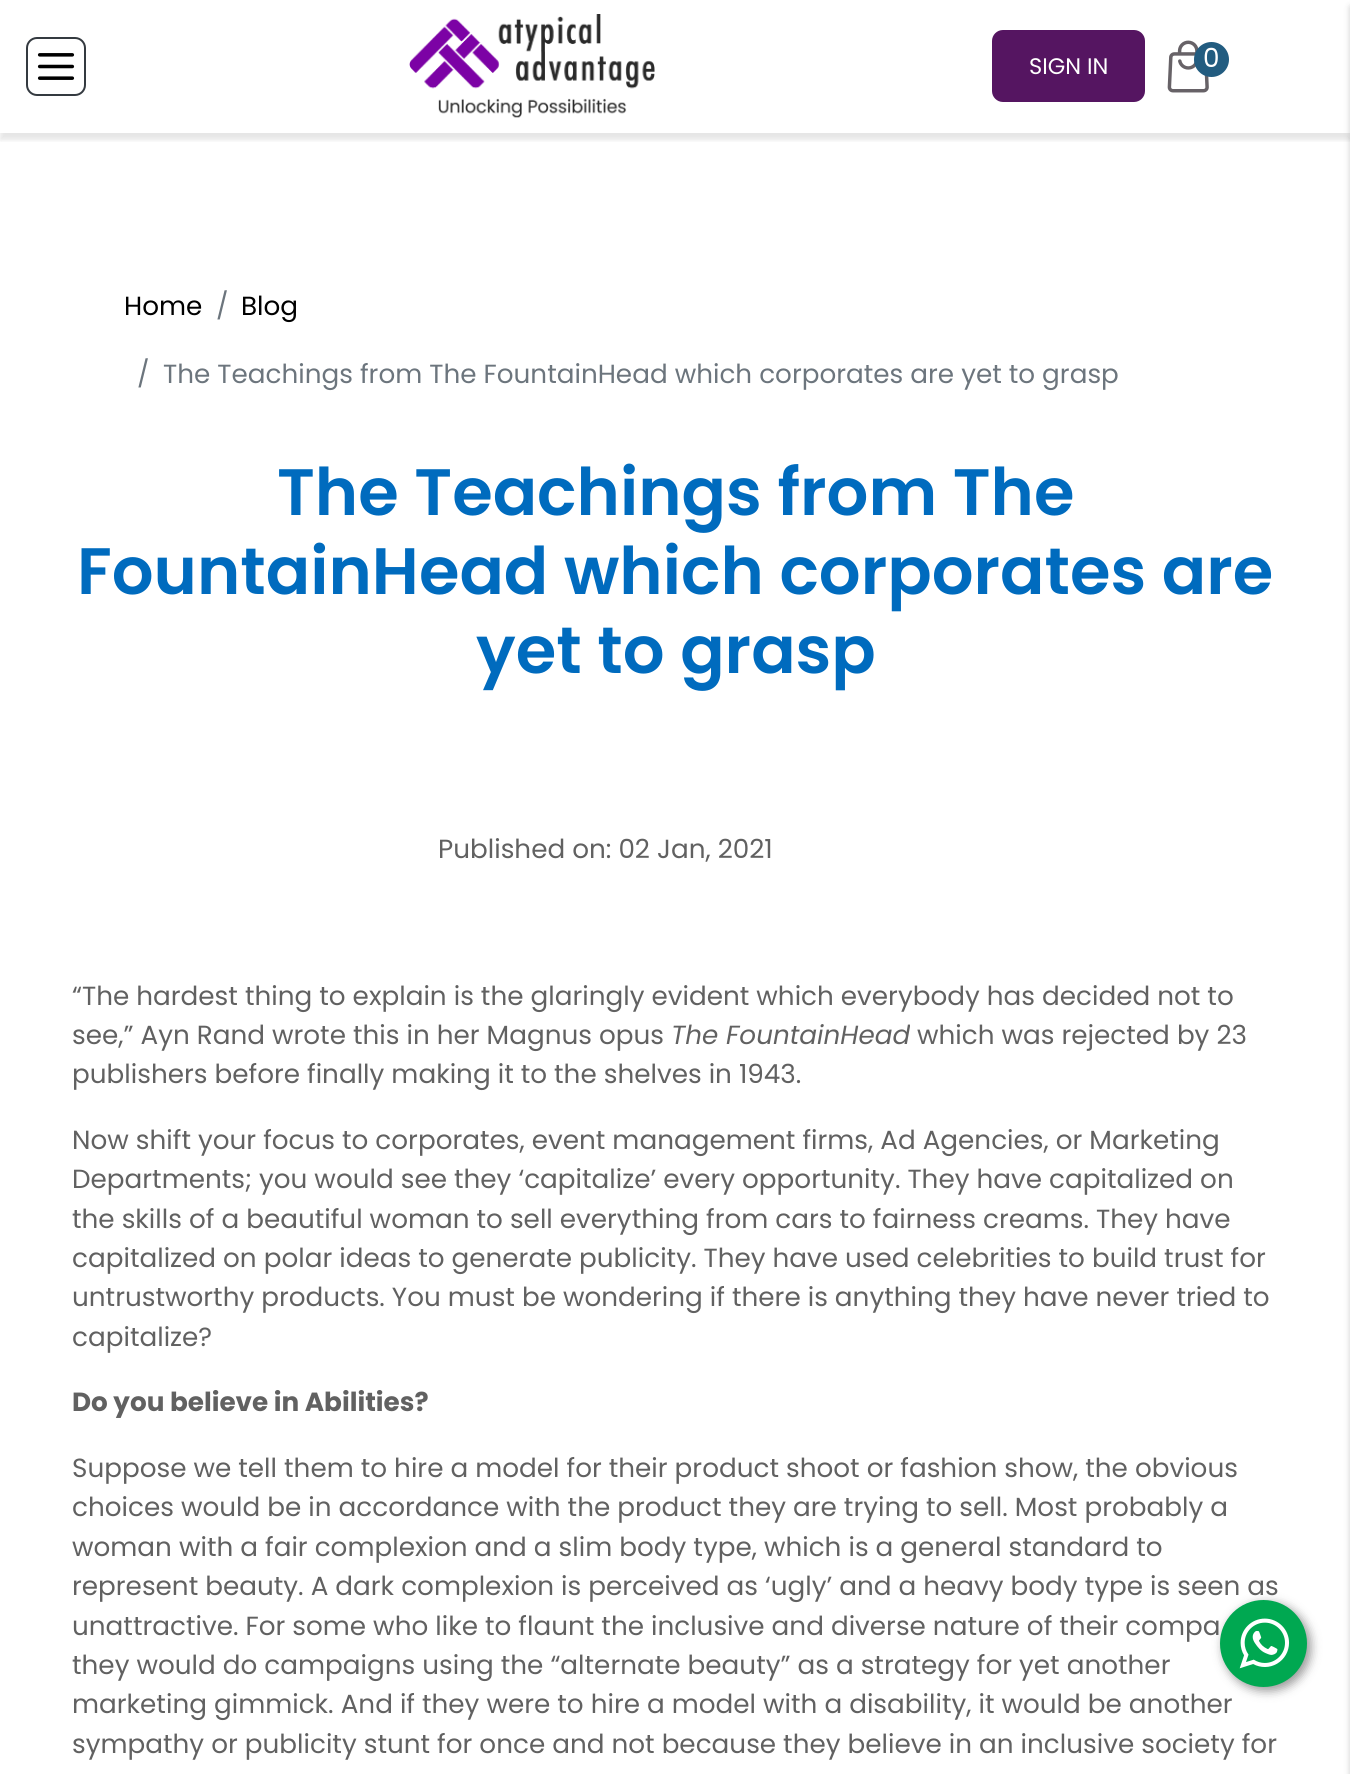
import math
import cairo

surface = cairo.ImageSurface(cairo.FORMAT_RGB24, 1350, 1774)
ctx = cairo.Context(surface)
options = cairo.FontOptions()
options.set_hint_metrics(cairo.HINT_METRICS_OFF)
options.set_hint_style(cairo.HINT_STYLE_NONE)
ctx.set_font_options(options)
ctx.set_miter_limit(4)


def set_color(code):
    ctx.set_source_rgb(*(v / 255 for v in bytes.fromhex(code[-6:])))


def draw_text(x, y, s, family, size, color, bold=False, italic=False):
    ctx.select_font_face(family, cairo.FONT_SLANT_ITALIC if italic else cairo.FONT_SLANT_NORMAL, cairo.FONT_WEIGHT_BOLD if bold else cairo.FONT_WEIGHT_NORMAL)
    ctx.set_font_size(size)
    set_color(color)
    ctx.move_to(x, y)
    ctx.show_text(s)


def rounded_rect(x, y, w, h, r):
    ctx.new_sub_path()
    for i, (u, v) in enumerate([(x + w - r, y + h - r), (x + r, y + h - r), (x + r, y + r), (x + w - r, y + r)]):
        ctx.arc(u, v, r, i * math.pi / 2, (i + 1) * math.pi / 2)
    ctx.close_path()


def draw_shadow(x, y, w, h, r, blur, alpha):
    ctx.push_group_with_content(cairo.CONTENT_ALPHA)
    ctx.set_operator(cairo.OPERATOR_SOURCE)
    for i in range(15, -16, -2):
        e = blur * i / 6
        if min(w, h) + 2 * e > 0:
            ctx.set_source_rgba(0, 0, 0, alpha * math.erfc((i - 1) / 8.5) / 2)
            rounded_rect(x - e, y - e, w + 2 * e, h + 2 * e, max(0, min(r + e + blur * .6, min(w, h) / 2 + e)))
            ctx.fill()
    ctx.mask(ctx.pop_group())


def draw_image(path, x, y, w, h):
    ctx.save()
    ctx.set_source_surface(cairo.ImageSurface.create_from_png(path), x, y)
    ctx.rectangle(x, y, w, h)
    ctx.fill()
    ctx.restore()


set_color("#ffffff")
ctx.paint()
ctx.save()
ctx.rectangle(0, 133, 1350, 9)
ctx.clip()
set_color("#000000")
draw_shadow(0, 7, 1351, 133, 0, 2.5, 0.1)
ctx.restore()
rounded_rect(27, 38, 58, 57, 10)
set_color("#343a40")
ctx.stroke()
draw_image("assets/img1.png", 37, 53, 38, 27)
draw_image("assets/img2.png", 409, 14, 246, 104)
set_color("#551561")
rounded_rect(992, 30, 153, 72, 11)
ctx.fill()
draw_text(1029, 74, "SIGN IN", "Poppins", 22.5, "#ffffff")
draw_image("assets/img3.png", 1167, 40, 42, 53)
set_color("#225c80")
ctx.arc(1211.5, 59.5, 17.5, 0, 2 * math.pi)
ctx.fill()
draw_text(1203, 67, "0", "Poppins", 26.25, "#ffffff")
set_color("#000000")
draw_shadow(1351, 7, 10, 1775, 0, 3.5, 0.25)
draw_text(124, 315, "Home", "Poppins", 26.25, "#000000")
draw_text(216, 315, "/", "Poppins", 26.25, "#6c757d")
draw_text(241, 315, "Blog", "Poppins", 26.25, "#000000")
draw_text(137, 383, "/", "Poppins", 26.25, "#6c757d")
draw_text(163, 383, "The Teachings from The FountainHead which corporates are yet to grasp", "Poppins", 26.25, "#6c757d")
draw_text(277, 515, "The Teachings from The", "Poppins SemiBold", 65.6, "#006bbe")
draw_text(77, 594, "FountainHead which corporates are", "Poppins SemiBold", 65.6, "#006bbe")
draw_text(476, 673, "yet to grasp", "Poppins SemiBold", 65.6, "#006bbe")
draw_text(438, 858, "Published on: 02 Jan, 2021", "Poppins", 26.25, "#616161")
draw_text(72, 1005, "“The hardest thing to explain is the glaringly evident which everybody has decided not to", "Poppins", 26.25, "#616161")
draw_text(72, 1044, "see,” Ayn Rand wrote this in her Magnus opus", "Poppins", 26.25, "#616161")
draw_text(671, 1044, "The FountainHead", "Poppins", 26.25, "#616161", italic=True)
draw_text(917, 1044, "which was rejected by 23", "Poppins", 26.25, "#616161")
draw_text(72, 1083, "publishers before finally making it to the shelves in 1943.", "Poppins", 26.25, "#616161")
draw_text(72, 1149, "Now shift your focus to corporates, event management firms, Ad Agencies, or Marketing", "Poppins", 26.25, "#616161")
draw_text(72, 1188, "Departments; you would see they ‘capitalize’ every opportunity. They have capitalized on", "Poppins", 26.25, "#616161")
draw_text(72, 1228, "the skills of a beautiful woman to sell everything from cars to fairness creams. They have", "Poppins", 26.25, "#616161")
draw_text(72, 1267, "capitalized on polar ideas to generate publicity. They have used celebrities to build trust for", "Poppins", 26.25, "#616161")
draw_text(72, 1306, "untrustworthy products. You must be wondering if there is anything they have never tried to", "Poppins", 26.25, "#616161")
draw_text(72, 1346, "capitalize?", "Poppins", 26.25, "#616161")
draw_text(72, 1411, "Do you believe in Abilities?", "Poppins", 26.25, "#616161", bold=True)
draw_text(72, 1477, "Suppose we tell them to hire a model for their product shoot or fashion show, the obvious", "Poppins", 26.25, "#616161")
draw_text(72, 1516, "choices would be in accordance with the product they are trying to sell. Most probably a", "Poppins", 26.25, "#616161")
draw_text(72, 1556, "woman with a fair complexion and a slim body type, which is a general standard to", "Poppins", 26.25, "#616161")
draw_text(72, 1595, "represent beauty. A dark complexion is perceived as ‘ugly’ and a heavy body type is seen as", "Poppins", 26.25, "#616161")
draw_text(72, 1635, "unattractive. For some who like to flaunt the inclusive and diverse nature of their compa", "Poppins", 26.25, "#616161")
draw_text(72, 1674, "they would do campaigns using the “alternate beauty” as a strategy for yet another", "Poppins", 26.25, "#616161")
draw_text(72, 1713, "marketing gimmick. And if they were to hire a model with a disability, it would be another", "Poppins", 26.25, "#616161")
draw_text(72, 1753, "sympathy or publicity stunt for once and not because they believe in an inclusive society for", "Poppins", 26.25, "#616161")
set_color("#000000")
draw_shadow(1223, 1603, 88, 88, 44, 5, 0.4)
set_color("#00a851")
ctx.arc(1263.5, 1643.5, 43.5, 0, 2 * math.pi)
ctx.fill()
draw_image("assets/img4.png", 1239, 1618, 51, 51)
surface.write_to_png("output.png")
